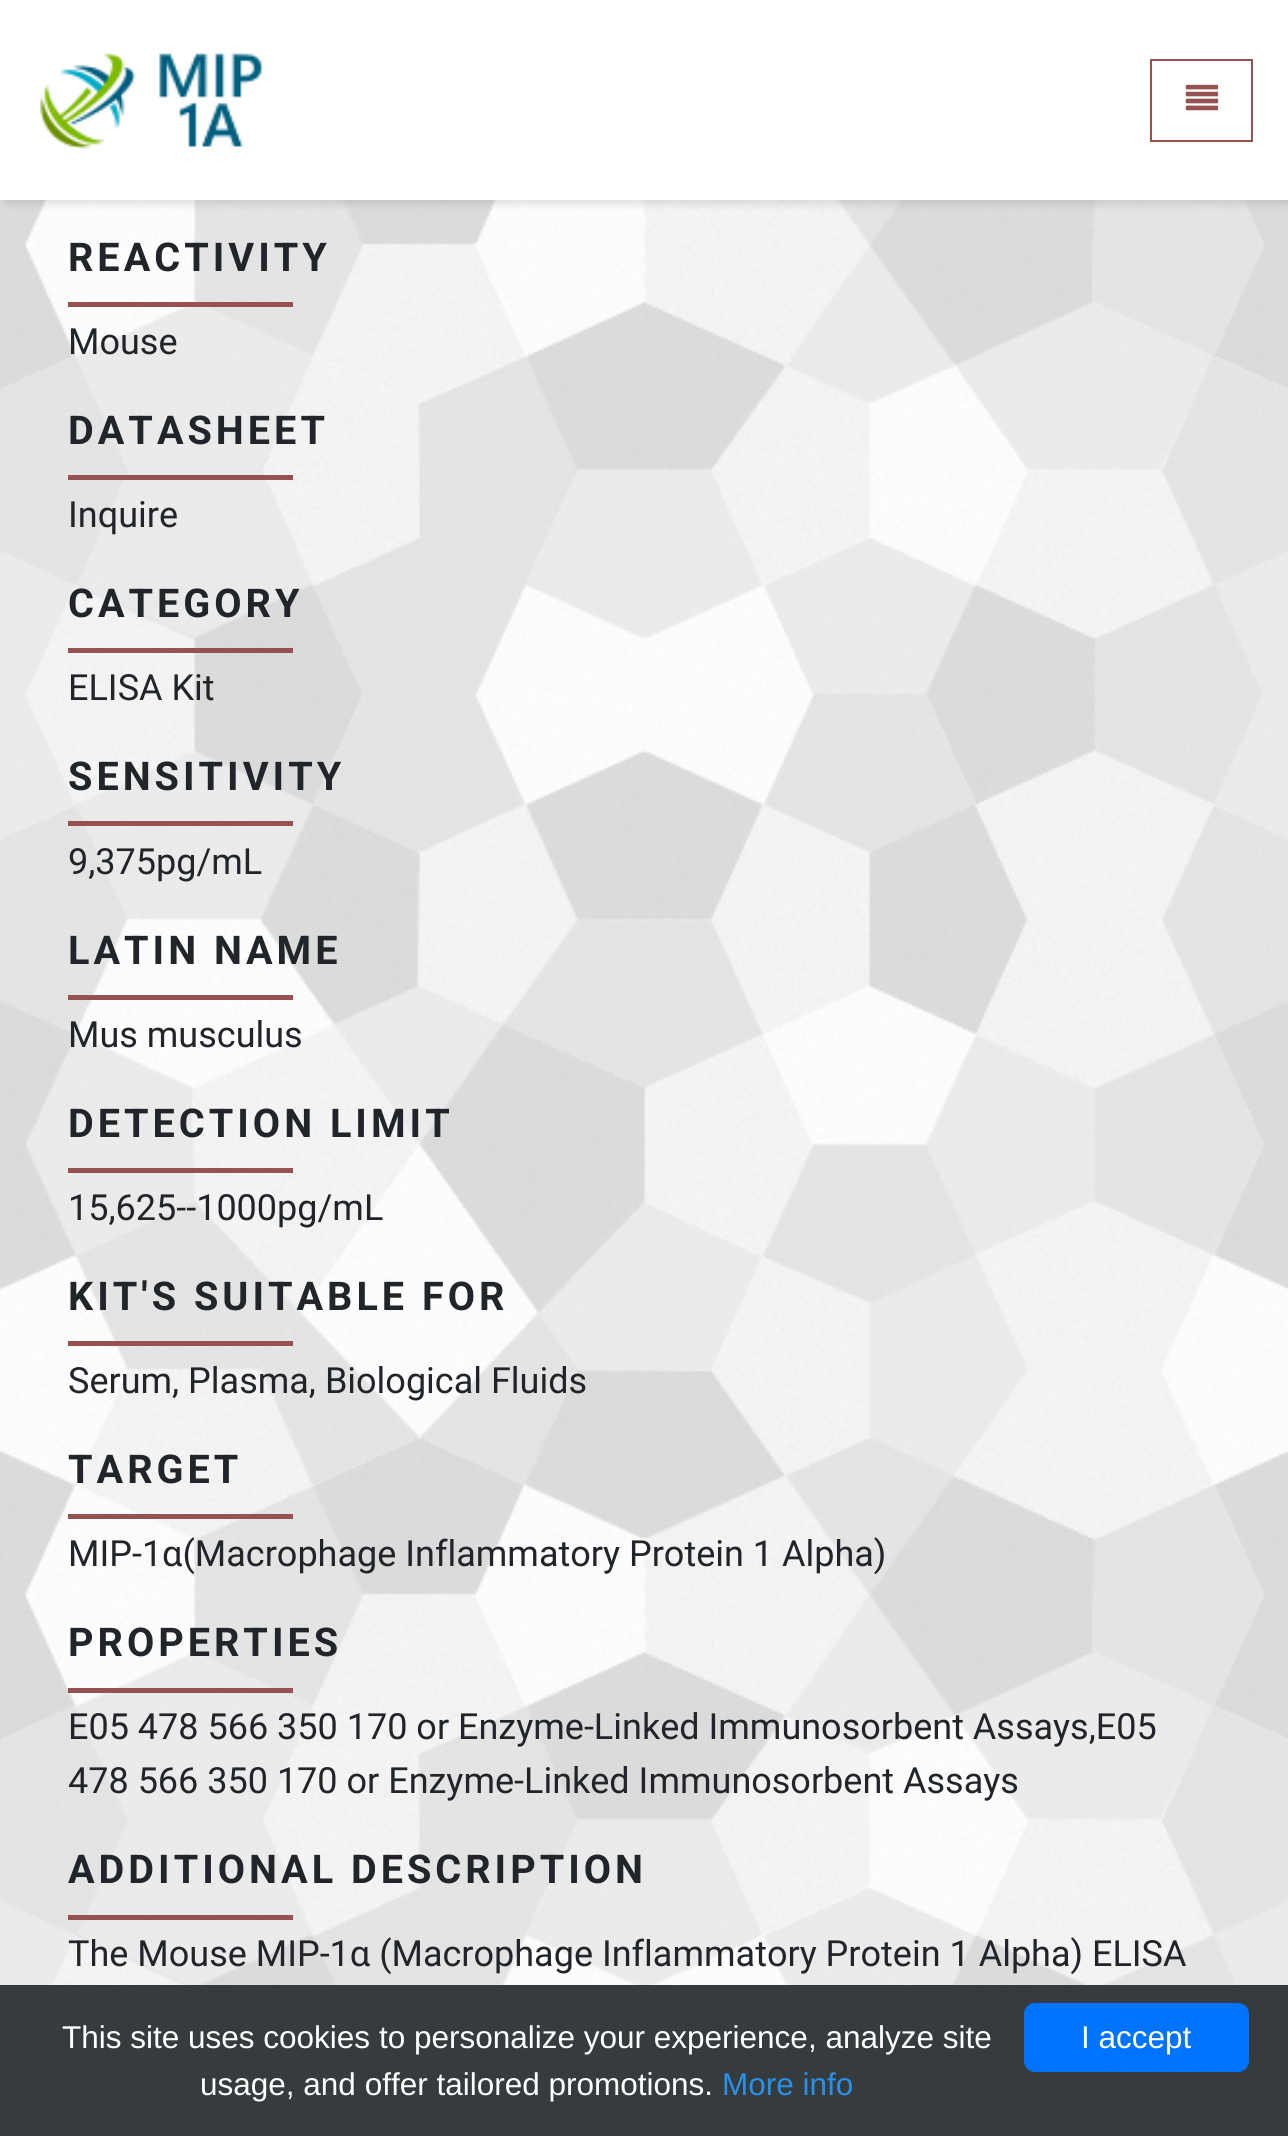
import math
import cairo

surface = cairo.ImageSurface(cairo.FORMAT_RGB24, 1288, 2136)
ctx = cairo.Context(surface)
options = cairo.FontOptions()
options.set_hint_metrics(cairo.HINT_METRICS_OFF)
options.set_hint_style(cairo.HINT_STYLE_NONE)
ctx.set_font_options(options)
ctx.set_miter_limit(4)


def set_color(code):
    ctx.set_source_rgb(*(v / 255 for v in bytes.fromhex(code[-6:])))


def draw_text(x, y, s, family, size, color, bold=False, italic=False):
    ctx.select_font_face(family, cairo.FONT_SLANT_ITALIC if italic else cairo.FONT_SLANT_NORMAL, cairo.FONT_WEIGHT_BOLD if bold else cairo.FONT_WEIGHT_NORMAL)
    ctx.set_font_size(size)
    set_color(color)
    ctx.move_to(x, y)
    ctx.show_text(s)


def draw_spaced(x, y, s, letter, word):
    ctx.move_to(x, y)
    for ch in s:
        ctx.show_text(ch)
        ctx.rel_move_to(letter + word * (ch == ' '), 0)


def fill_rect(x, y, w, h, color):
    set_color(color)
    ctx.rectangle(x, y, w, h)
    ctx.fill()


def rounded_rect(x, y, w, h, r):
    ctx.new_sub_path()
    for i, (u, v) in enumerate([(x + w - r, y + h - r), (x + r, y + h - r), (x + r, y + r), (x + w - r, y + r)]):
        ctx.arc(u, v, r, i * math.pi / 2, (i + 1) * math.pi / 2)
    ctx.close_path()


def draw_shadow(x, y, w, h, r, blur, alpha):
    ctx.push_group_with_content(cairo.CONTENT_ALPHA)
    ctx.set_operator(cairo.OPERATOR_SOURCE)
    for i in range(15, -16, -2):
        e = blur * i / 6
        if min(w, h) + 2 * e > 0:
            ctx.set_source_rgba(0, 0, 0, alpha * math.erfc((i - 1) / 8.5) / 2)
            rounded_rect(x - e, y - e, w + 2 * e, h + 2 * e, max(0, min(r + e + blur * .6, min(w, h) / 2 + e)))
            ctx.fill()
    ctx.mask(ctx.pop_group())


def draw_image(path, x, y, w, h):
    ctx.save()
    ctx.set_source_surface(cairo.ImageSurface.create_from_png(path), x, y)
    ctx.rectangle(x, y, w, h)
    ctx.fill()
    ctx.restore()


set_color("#ffffff")
ctx.paint()
draw_image("assets/img3.png", 0, 200, 1288, 1785)
set_color("#000000")
draw_shadow(5, 5, 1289, 200, 0, 3.5, 0.1)
fill_rect(1, 1, 1287, 199, "#ffffff")
draw_image("assets/img1.png", 40, 53, 224, 96)
ctx.rectangle(1151, 60, 101, 81)
set_color("#955251")
ctx.stroke()
draw_image("assets/img2.png", 1185, 84, 34, 27)
ctx.select_font_face("Roboto", cairo.FONT_SLANT_NORMAL, cairo.FONT_WEIGHT_BOLD)
ctx.set_font_size(39.6)
set_color("#212529")
draw_spaced(68, 271, "REACTIVITY", 4, 0)
fill_rect(68, 302, 225, 5, "#955251")
draw_text(68, 354, "Mouse", "Roboto", 36, "#212529")
ctx.select_font_face("Roboto", cairo.FONT_SLANT_NORMAL, cairo.FONT_WEIGHT_BOLD)
ctx.set_font_size(39.6)
draw_spaced(68, 444, "DATASHEET", 4, 0)
fill_rect(68, 475, 225, 5, "#955251")
draw_text(68, 527, "Inquire", "Roboto", 36, "#212529")
ctx.select_font_face("Roboto", cairo.FONT_SLANT_NORMAL, cairo.FONT_WEIGHT_BOLD)
ctx.set_font_size(39.6)
draw_spaced(68, 617, "CATEGORY", 4, 0)
fill_rect(68, 648, 225, 5, "#955251")
draw_text(68, 700, "ELISA Kit", "Roboto", 36, "#212529")
ctx.select_font_face("Roboto", cairo.FONT_SLANT_NORMAL, cairo.FONT_WEIGHT_BOLD)
ctx.set_font_size(39.6)
draw_spaced(68, 790, "SENSITIVITY", 4, 0)
fill_rect(68, 821, 225, 5, "#955251")
draw_text(68, 874, "9,375pg/mL", "Roboto", 36, "#212529")
ctx.select_font_face("Roboto", cairo.FONT_SLANT_NORMAL, cairo.FONT_WEIGHT_BOLD)
ctx.set_font_size(39.6)
draw_spaced(68, 964, "LATIN NAME", 4, 0)
fill_rect(68, 995, 225, 5, "#955251")
draw_text(68, 1047, "Mus musculus", "Roboto", 36, "#212529")
ctx.select_font_face("Roboto", cairo.FONT_SLANT_NORMAL, cairo.FONT_WEIGHT_BOLD)
ctx.set_font_size(39.6)
draw_spaced(68, 1137, "DETECTION LIMIT", 4, 0)
fill_rect(68, 1168, 225, 5, "#955251")
draw_text(68, 1220, "15,625--1000pg/mL", "Roboto", 36, "#212529")
ctx.select_font_face("Roboto", cairo.FONT_SLANT_NORMAL, cairo.FONT_WEIGHT_BOLD)
ctx.set_font_size(39.6)
draw_spaced(68, 1310, "KIT'S SUITABLE FOR", 4, 0)
fill_rect(68, 1341, 225, 5, "#955251")
draw_text(68, 1393, "Serum, Plasma, Biological Fluids", "Roboto", 36, "#212529")
ctx.select_font_face("Roboto", cairo.FONT_SLANT_NORMAL, cairo.FONT_WEIGHT_BOLD)
ctx.set_font_size(39.6)
draw_spaced(68, 1483, "TARGET", 4, 0)
fill_rect(68, 1514, 225, 5, "#955251")
draw_text(68, 1566, "MIP-1α(Macrophage Inflammatory Protein 1 Alpha)", "Roboto", 36, "#212529")
ctx.select_font_face("Roboto", cairo.FONT_SLANT_NORMAL, cairo.FONT_WEIGHT_BOLD)
ctx.set_font_size(39.6)
draw_spaced(68, 1656, "PROPERTIES", 4, 0)
fill_rect(68, 1688, 225, 5, "#955251")
draw_text(68, 1739, "E05 478 566 350 170 or Enzyme-Linked Immunosorbent Assays,E05", "Roboto", 36, "#212529")
draw_text(68, 1793, "478 566 350 170 or Enzyme-Linked Immunosorbent Assays", "Roboto", 36, "#212529")
ctx.select_font_face("Roboto", cairo.FONT_SLANT_NORMAL, cairo.FONT_WEIGHT_BOLD)
ctx.set_font_size(39.6)
draw_spaced(68, 1883, "ADDITIONAL DESCRIPTION", 4, 0)
fill_rect(68, 1915, 225, 5, "#955251")
draw_text(68, 1966, "The Mouse MIP-1α (Macrophage Inflammatory Protein 1 Alpha) ELISA", "Roboto", 36, "#212529")
fill_rect(0, 1985, 1288, 151, "#363b3e")
draw_text(62, 2048, "This site uses cookies to personalize your experience, analyze site", "Liberation Sans", 31.5, "#ffffff")
draw_text(200, 2095, "usage, and offer tailored promotions.", "Liberation Sans", 31.5, "#ffffff")
draw_text(722, 2095, "More info", "Liberation Sans", 31.5, "#2990ea")
set_color("#0073ff")
rounded_rect(1024, 2003, 225, 69, 11)
ctx.fill()
draw_text(1081, 2048, "I accept", "Liberation Sans", 31.5, "#ffffff")
surface.write_to_png("output.png")
